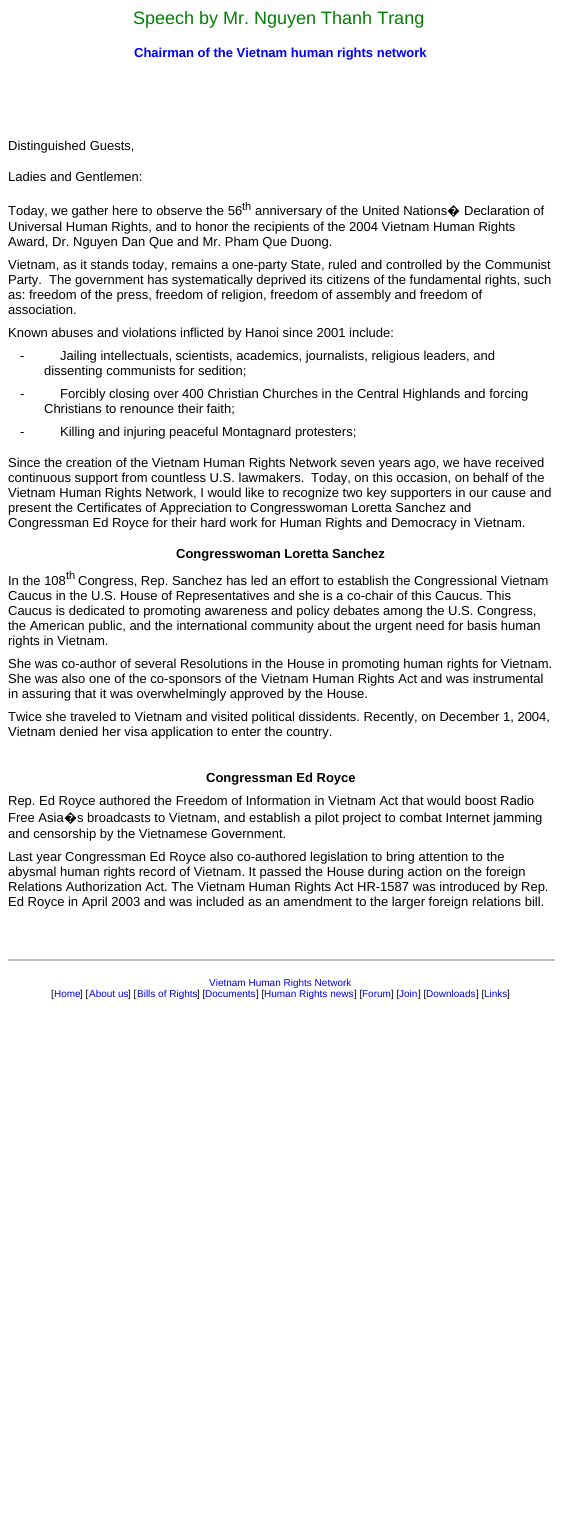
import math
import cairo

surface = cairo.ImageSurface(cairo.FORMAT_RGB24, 561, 1530)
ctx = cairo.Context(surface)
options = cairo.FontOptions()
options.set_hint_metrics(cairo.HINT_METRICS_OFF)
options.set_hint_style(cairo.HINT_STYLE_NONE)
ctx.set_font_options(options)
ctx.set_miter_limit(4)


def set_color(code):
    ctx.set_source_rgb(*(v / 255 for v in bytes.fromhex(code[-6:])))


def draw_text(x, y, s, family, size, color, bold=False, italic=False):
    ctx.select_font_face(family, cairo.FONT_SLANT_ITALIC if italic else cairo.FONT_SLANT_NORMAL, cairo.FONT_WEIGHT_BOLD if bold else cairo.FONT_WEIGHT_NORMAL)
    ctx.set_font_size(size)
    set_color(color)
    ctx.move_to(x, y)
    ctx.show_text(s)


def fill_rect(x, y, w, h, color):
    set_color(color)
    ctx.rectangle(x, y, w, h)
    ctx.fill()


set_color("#ffffff")
ctx.paint()
draw_text(133, 24, "Speech by Mr. Nguyen Thanh Trang", "Liberation Sans", 18, "#008000")
draw_text(134, 57, "Chairman of the Vietnam human rights network", "Liberation Sans", 13, "#0000ff", bold=True)
draw_text(8, 150, "Distinguished Guests,", "Liberation Sans", 13, "#000000")
draw_text(8, 181, "Ladies and Gentlemen:", "Liberation Sans", 13, "#000000")
draw_text(8, 215, "Today, we gather here to observe the 56", "Liberation Sans", 13, "#000000")
draw_text(242, 210, "th", "Liberation Sans", 11, "#000000")
draw_text(255, 215, "anniversary of the United Nations", "Liberation Sans", 13, "#000000")
draw_text(447, 215, "�", "Noto Sans", 13, "#000000")
draw_text(464, 215, "Declaration of", "Liberation Sans", 13, "#000000")
draw_text(8, 231, "Universal Human Rights, and to honor the recipients of the 2004 Vietnam Human Rights", "Liberation Sans", 13, "#000000")
draw_text(8, 246, "Award, Dr. Nguyen Dan Que and Mr. Pham Que Duong.", "Liberation Sans", 13, "#000000")
draw_text(8, 269, "Vietnam, as it stands today, remains a one-party State, ruled and controlled by the Communist", "Liberation Sans", 13, "#000000")
draw_text(8, 284, "Party.", "Liberation Sans", 13, "#000000")
draw_text(49, 284, "The government has systematically deprived its citizens of the fundamental rights, such", "Liberation Sans", 13, "#000000")
draw_text(8, 299, "as: freedom of the press, freedom of religion, freedom of assembly and freedom of", "Liberation Sans", 13, "#000000")
draw_text(8, 314, "association.", "Liberation Sans", 13, "#000000")
draw_text(8, 337, "Known abuses and violations inflicted by Hanoi since 2001 include:", "Liberation Sans", 13, "#000000")
draw_text(20, 360, "-", "Liberation Sans", 13, "#000000")
draw_text(60, 360, "Jailing intellectuals, scientists, academics, journalists, religious leaders, and", "Liberation Sans", 13, "#000000")
draw_text(44, 375, "dissenting communists for sedition;", "Liberation Sans", 13, "#000000")
draw_text(20, 398, "-", "Liberation Sans", 13, "#000000")
draw_text(60, 398, "Forcibly closing over 400 Christian Churches in the Central Highlands and forcing", "Liberation Sans", 13, "#000000")
draw_text(44, 413, "Christians to renounce their faith;", "Liberation Sans", 13, "#000000")
draw_text(20, 436, "-", "Liberation Sans", 13, "#000000")
draw_text(60, 436, "Killing and injuring peaceful Montagnard protesters;", "Liberation Sans", 13, "#000000")
draw_text(8, 467, "Since the creation of the Vietnam Human Rights Network seven years ago, we have received", "Liberation Sans", 13, "#000000")
draw_text(8, 482, "continuous support from countless U.S. lawmakers.", "Liberation Sans", 13, "#000000")
draw_text(311, 482, "Today, on this occasion, on behalf of the", "Liberation Sans", 13, "#000000")
draw_text(8, 497, "Vietnam Human Rights Network, I would like to recognize two key supporters in our cause and", "Liberation Sans", 13, "#000000")
draw_text(8, 512, "present the Certificates of Appreciation to Congresswoman Loretta Sanchez and", "Liberation Sans", 13, "#000000")
draw_text(8, 527, "Congressman Ed Royce for their hard work for Human Rights and Democracy in Vietnam.", "Liberation Sans", 13, "#000000")
draw_text(176, 558, "Congresswoman Loretta Sanchez", "Liberation Sans", 13, "#000000", bold=True)
draw_text(8, 585, "In the 108", "Liberation Sans", 13, "#000000")
draw_text(66, 579, "th", "Liberation Sans", 11, "#000000")
draw_text(78, 585, "Congress, Rep. Sanchez has led an effort to establish the Congressional Vietnam", "Liberation Sans", 13, "#000000")
draw_text(8, 600, "Caucus in the U.S. House of Representatives and she is a co-chair of this Caucus. This", "Liberation Sans", 13, "#000000")
draw_text(8, 615, "Caucus is dedicated to promoting awareness and policy debates among the U.S. Congress,", "Liberation Sans", 13, "#000000")
draw_text(8, 630, "the American public, and the international community about the urgent need for basis human", "Liberation Sans", 13, "#000000")
draw_text(8, 645, "rights in Vietnam.", "Liberation Sans", 13, "#000000")
draw_text(8, 668, "She was co-author of several Resolutions in the House in promoting human rights for Vietnam.", "Liberation Sans", 13, "#000000")
draw_text(8, 683, "She was also one of the co-sponsors of the Vietnam Human Rights Act and was instrumental", "Liberation Sans", 13, "#000000")
draw_text(8, 698, "in assuring that it was overwhelmingly approved by the House.", "Liberation Sans", 13, "#000000")
draw_text(8, 721, "Twice she traveled to Vietnam and visited political dissidents. Recently, on December 1, 2004,", "Liberation Sans", 13, "#000000")
draw_text(8, 736, "Vietnam denied her visa application to enter the country.", "Liberation Sans", 13, "#000000")
draw_text(206, 782, "Congressman Ed Royce", "Liberation Sans", 13, "#000000", bold=True)
draw_text(8, 805, "Rep. Ed Royce authored the Freedom of Information in Vietnam Act that would boost Radio", "Liberation Sans", 13, "#000000")
draw_text(8, 822, "Free Asia", "Liberation Sans", 13, "#000000")
draw_text(64, 822, "�", "Noto Sans", 13, "#000000")
draw_text(77, 822, "s broadcasts to Vietnam, and establish a pilot project to combat Internet jamming", "Liberation Sans", 13, "#000000")
draw_text(8, 838, "and censorship by the Vietnamese Government.", "Liberation Sans", 13, "#000000")
draw_text(8, 861, "Last year Congressman Ed Royce also co-authored legislation to bring attention to the", "Liberation Sans", 13, "#000000")
draw_text(8, 876, "abysmal human rights record of Vietnam. It passed the House during action on the foreign", "Liberation Sans", 13, "#000000")
draw_text(8, 891, "Relations Authorization Act. The Vietnam Human Rights Act HR-1587 was introduced by Rep.", "Liberation Sans", 13, "#000000")
draw_text(8, 906, "Ed Royce in April 2003 and was included as an amendment to the larger foreign relations bill.", "Liberation Sans", 13, "#000000")
fill_rect(8, 959, 547, 2, "#c0c0c0")
draw_text(209, 986, "Vietnam Human Rights Network", "Liberation Sans", 10, "#0000ee")
draw_text(51, 997, "[", "Liberation Sans", 10, "#000000")
draw_text(54, 997, "Home", "Liberation Sans", 10, "#0000ee")
draw_text(80, 997, "] [", "Liberation Sans", 10, "#000000")
draw_text(89, 997, "About us", "Liberation Sans", 10, "#0000ee")
draw_text(128, 997, "] [", "Liberation Sans", 10, "#000000")
draw_text(137, 997, "Bills of Rights", "Liberation Sans", 10, "#0000ee")
draw_text(197, 997, "] [", "Liberation Sans", 10, "#000000")
draw_text(205, 997, "Documents", "Liberation Sans", 10, "#0000ee")
draw_text(256, 997, "] [", "Liberation Sans", 10, "#000000")
draw_text(264, 997, "Human Rights news", "Liberation Sans", 10, "#0000ee")
draw_text(354, 997, "] [", "Liberation Sans", 10, "#000000")
draw_text(362, 997, "Forum", "Liberation Sans", 10, "#0000ee")
draw_text(391, 997, "] [", "Liberation Sans", 10, "#000000")
draw_text(399, 997, "Join", "Liberation Sans", 10, "#0000ee")
draw_text(418, 997, "] [", "Liberation Sans", 10, "#000000")
draw_text(426, 997, "Downloads", "Liberation Sans", 10, "#0000ee")
draw_text(476, 997, "] [", "Liberation Sans", 10, "#000000")
draw_text(484, 997, "Links", "Liberation Sans", 10, "#0000ee")
draw_text(507, 997, "]", "Liberation Sans", 10, "#000000")
surface.write_to_png("output.png")
